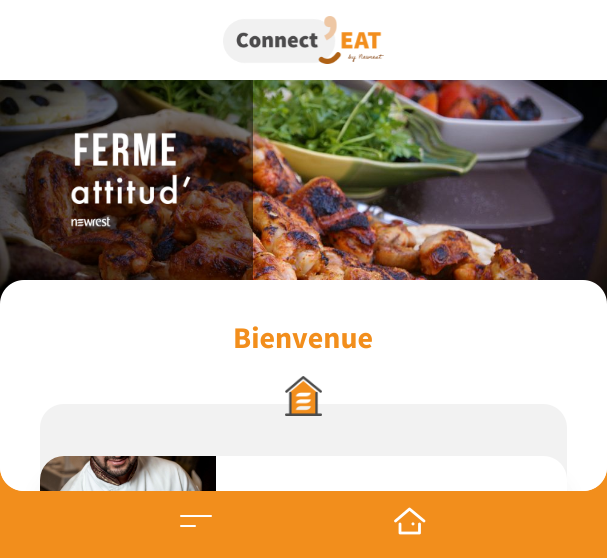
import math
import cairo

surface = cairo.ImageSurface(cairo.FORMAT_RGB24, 607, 558)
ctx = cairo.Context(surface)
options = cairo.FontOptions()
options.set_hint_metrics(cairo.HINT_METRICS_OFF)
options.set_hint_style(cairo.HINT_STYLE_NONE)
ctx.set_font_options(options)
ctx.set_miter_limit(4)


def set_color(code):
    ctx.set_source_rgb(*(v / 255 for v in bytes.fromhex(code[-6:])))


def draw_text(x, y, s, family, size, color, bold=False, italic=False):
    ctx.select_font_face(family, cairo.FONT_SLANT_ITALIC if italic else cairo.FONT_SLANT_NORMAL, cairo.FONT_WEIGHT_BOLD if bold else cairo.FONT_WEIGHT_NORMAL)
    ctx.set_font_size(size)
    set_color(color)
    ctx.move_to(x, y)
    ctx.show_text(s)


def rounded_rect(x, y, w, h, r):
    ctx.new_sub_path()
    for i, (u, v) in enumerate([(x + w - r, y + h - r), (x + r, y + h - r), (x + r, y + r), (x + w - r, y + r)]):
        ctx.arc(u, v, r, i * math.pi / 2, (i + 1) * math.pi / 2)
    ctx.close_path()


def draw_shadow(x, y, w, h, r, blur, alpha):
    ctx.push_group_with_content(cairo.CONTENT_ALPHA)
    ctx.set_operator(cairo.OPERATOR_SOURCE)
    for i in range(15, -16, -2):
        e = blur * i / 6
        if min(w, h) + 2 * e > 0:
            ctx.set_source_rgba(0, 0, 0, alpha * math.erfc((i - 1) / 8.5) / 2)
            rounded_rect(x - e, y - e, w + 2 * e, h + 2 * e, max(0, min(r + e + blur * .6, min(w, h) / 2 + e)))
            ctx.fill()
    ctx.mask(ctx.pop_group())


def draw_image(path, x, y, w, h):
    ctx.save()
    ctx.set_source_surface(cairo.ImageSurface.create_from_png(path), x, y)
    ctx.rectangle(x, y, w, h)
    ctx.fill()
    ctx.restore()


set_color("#f28e1c")
ctx.paint()
set_color("#ffffff")
ctx.new_path()
ctx.move_to(0, 0)
ctx.line_to(607, 0)
ctx.line_to(607, 467)
ctx.curve_to(607, 480.5, 596.5, 491, 583, 491)
ctx.line_to(24, 491)
ctx.curve_to(10.5, 491, 0, 480.5, 0, 467)
ctx.close_path()
ctx.fill()
draw_image("assets/img2.png", 0, 80, 607, 224)
ctx.set_source_rgba(0, 0, 0, 0.5)
ctx.rectangle(0, 80, 253, 224)
ctx.fill()
draw_image("assets/img3.png", 70, 132, 121, 95)
ctx.save()
ctx.rectangle(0, 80, 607, 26)
ctx.clip()
set_color("#000000")
draw_shadow(0, 3, 607, 80, 0, 20, 0.16)
ctx.restore()
draw_image("assets/img1.png", 223, 16, 161, 48)
set_color("#ffffff")
rounded_rect(0, 280, 607, 211, 24)
ctx.fill()
draw_text(233, 348, "Bienvenue", "Source Sans Pro", 30, "#f28e1c", bold=True)
set_color("#f2f2f2")
ctx.new_path()
ctx.move_to(64, 404)
ctx.line_to(543, 404)
ctx.curve_to(556.5, 404, 567, 414.5, 567, 428)
ctx.line_to(567, 491)
ctx.line_to(40, 491)
ctx.line_to(40, 428)
ctx.curve_to(40, 414.5, 50.5, 404, 64, 404)
ctx.close_path()
ctx.fill()
draw_image("assets/img4.png", 285, 376, 37, 40)
ctx.save()
ctx.new_path()
ctx.move_to(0, 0)
ctx.line_to(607, 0)
ctx.line_to(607, 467)
ctx.curve_to(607, 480.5, 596.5, 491, 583, 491)
ctx.line_to(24, 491)
ctx.curve_to(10.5, 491, 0, 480.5, 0, 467)
ctx.close_path()
ctx.clip()
set_color("#000000")
draw_shadow(45, 481, 517, 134, 19, 12.5, 0.1)
ctx.restore()
set_color("#ffffff")
ctx.new_path()
ctx.move_to(64, 456)
ctx.line_to(543, 456)
ctx.curve_to(556.5, 456, 567, 466.5, 567, 480)
ctx.line_to(567, 491)
ctx.line_to(40, 491)
ctx.line_to(40, 480)
ctx.curve_to(40, 466.5, 50.5, 456, 64, 456)
ctx.close_path()
ctx.fill()
draw_image("assets/img5.png", 40, 456, 176, 35)
rounded_rect(180, 515, 32, 2, 1)
ctx.fill()
rounded_rect(180, 525, 16, 2, 1)
ctx.fill()
ctx.new_path()
ctx.move_to(400, 524)
ctx.line_to(400, 533)
ctx.line_to(419.5, 533)
ctx.line_to(419.5, 524)
ctx.move_to(424, 521)
ctx.line_to(409.5, 509)
ctx.line_to(395.5, 521)
ctx.set_line_width(2.8)
ctx.set_line_cap(cairo.LINE_CAP_ROUND)
ctx.set_line_join(cairo.LINE_JOIN_ROUND)
ctx.stroke()
ctx.arc(413, 523.9, 1.5, 0, 2 * math.pi)
ctx.fill()
surface.write_to_png("output.png")
